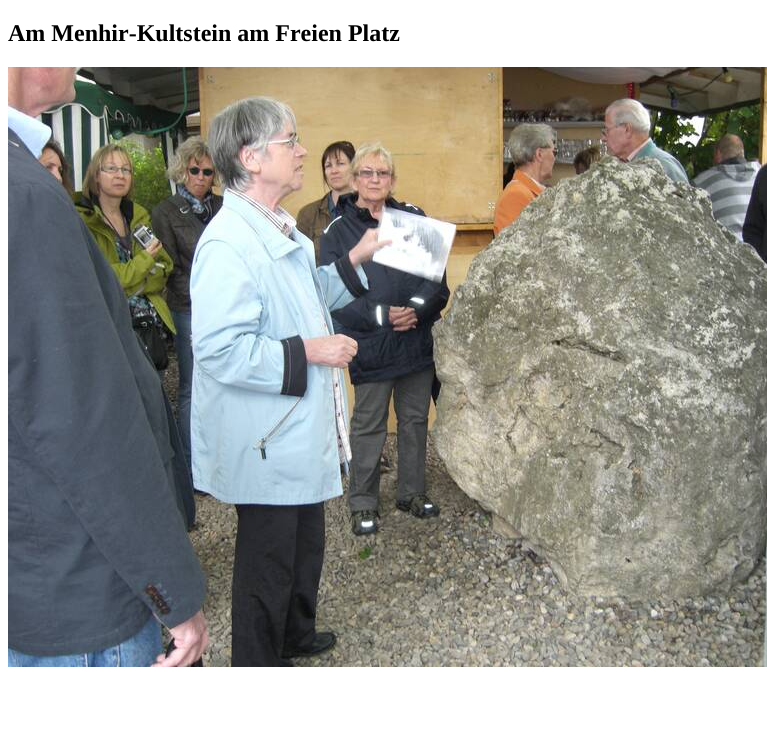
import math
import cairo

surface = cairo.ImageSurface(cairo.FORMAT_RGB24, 767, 742)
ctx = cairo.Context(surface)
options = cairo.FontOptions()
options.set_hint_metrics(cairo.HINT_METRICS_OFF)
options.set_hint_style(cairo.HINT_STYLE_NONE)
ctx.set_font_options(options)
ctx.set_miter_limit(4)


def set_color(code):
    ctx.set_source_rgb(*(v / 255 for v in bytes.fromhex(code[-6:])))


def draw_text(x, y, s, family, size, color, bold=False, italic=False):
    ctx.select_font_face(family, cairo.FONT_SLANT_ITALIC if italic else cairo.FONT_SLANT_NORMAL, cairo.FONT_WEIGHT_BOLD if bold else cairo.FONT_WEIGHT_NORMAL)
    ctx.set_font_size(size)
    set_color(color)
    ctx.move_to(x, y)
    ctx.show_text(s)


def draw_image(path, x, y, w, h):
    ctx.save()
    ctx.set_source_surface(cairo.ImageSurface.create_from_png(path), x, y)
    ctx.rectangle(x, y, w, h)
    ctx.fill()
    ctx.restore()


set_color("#ffffff")
ctx.paint()
draw_text(8, 41, "Am Menhir-Kultstein am Freien Platz", "Liberation Serif", 24, "#000000", bold=True)
draw_image("assets/img1.png", 8, 67, 759, 600)
surface.write_to_png("output.png")
